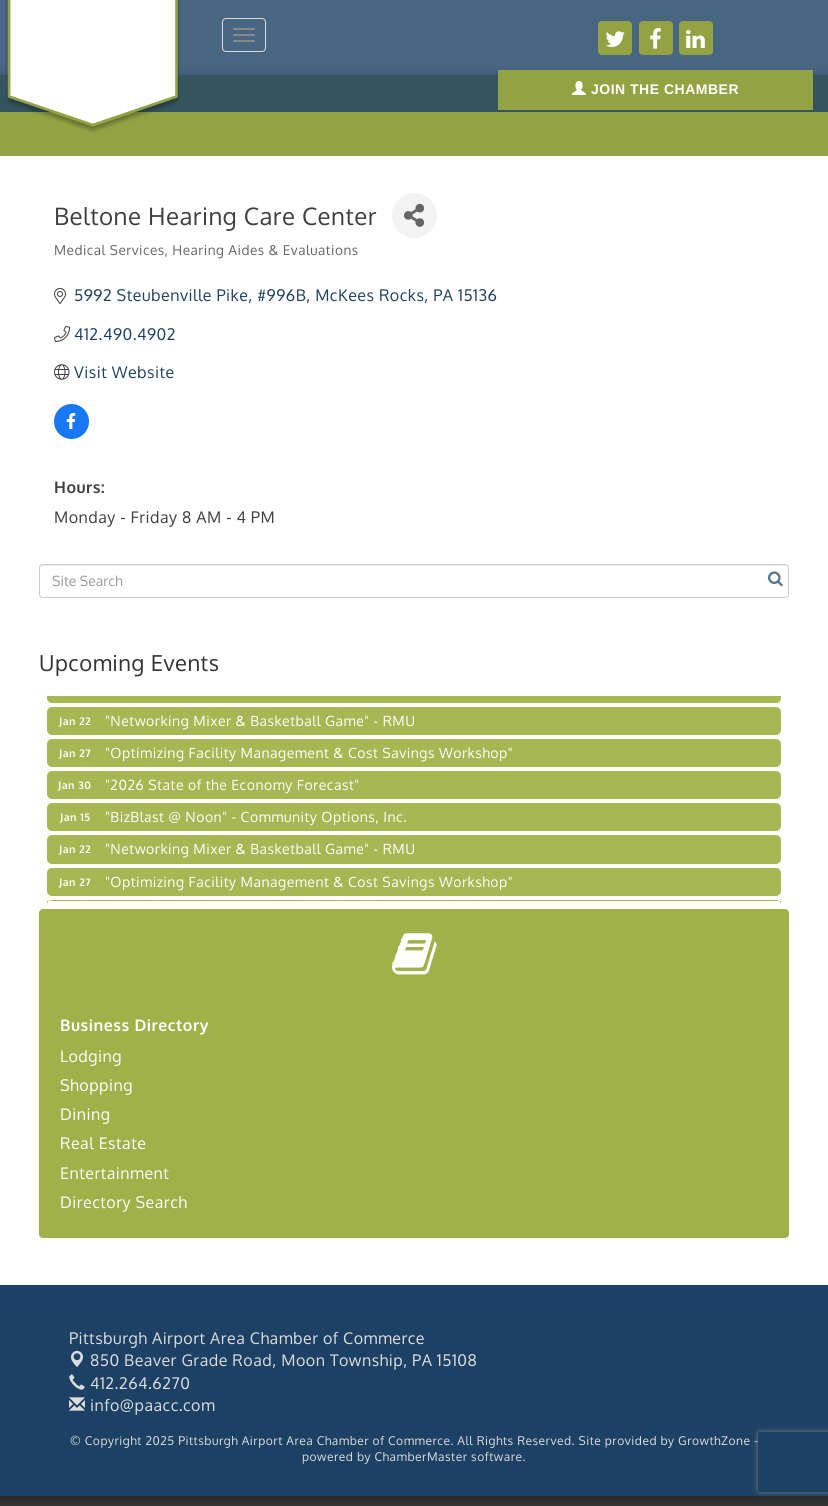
import math
import cairo

surface = cairo.ImageSurface(cairo.FORMAT_RGB24, 828, 1506)
ctx = cairo.Context(surface)
options = cairo.FontOptions()
options.set_hint_metrics(cairo.HINT_METRICS_OFF)
options.set_hint_style(cairo.HINT_STYLE_NONE)
ctx.set_font_options(options)
ctx.set_miter_limit(4)


def set_color(code):
    ctx.set_source_rgb(*(v / 255 for v in bytes.fromhex(code[-6:])))


def draw_text(x, y, s, family, size, color, bold=False, italic=False):
    ctx.select_font_face(family, cairo.FONT_SLANT_ITALIC if italic else cairo.FONT_SLANT_NORMAL, cairo.FONT_WEIGHT_BOLD if bold else cairo.FONT_WEIGHT_NORMAL)
    ctx.set_font_size(size)
    set_color(color)
    ctx.move_to(x, y)
    ctx.show_text(s)


def draw_spaced(x, y, s, letter, word):
    ctx.move_to(x, y)
    for ch in s:
        ctx.show_text(ch)
        ctx.rel_move_to(letter + word * (ch == ' '), 0)


def fill_rect(x, y, w, h, color):
    set_color(color)
    ctx.rectangle(x, y, w, h)
    ctx.fill()


def rounded_rect(x, y, w, h, r):
    ctx.new_sub_path()
    for i, (u, v) in enumerate([(x + w - r, y + h - r), (x + r, y + h - r), (x + r, y + r), (x + w - r, y + r)]):
        ctx.arc(u, v, r, i * math.pi / 2, (i + 1) * math.pi / 2)
    ctx.close_path()


def draw_shadow(x, y, w, h, r, blur, alpha):
    ctx.push_group_with_content(cairo.CONTENT_ALPHA)
    ctx.set_operator(cairo.OPERATOR_SOURCE)
    for i in range(15, -16, -2):
        e = blur * i / 6
        if min(w, h) + 2 * e > 0:
            ctx.set_source_rgba(0, 0, 0, alpha * math.erfc((i - 1) / 8.5) / 2)
            rounded_rect(x - e, y - e, w + 2 * e, h + 2 * e, max(0, min(r + e + blur * .6, min(w, h) / 2 + e)))
            ctx.fill()
    ctx.mask(ctx.pop_group())


def draw_image(path, x, y, w, h):
    ctx.save()
    ctx.set_source_surface(cairo.ImageSurface.create_from_png(path), x, y)
    ctx.rectangle(x, y, w, h)
    ctx.fill()
    ctx.restore()


set_color("#333333")
ctx.paint()
fill_rect(0, 0, 828, 75, "#f3f3f3")
ctx.save()
ctx.rectangle(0, 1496, 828, 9)
ctx.clip()
set_color("#000000")
draw_shadow(0, 0, 828, 1496, 0, 5, 0.5)
ctx.restore()
set_color("#000000")
draw_shadow(0, 73, 828, 81, 0, 3, 0.3)
fill_rect(0, 75, 828, 81, "#93a344")
ctx.set_source_rgba(0.114, 0.255, 0.392, 0.8)
ctx.rectangle(0, 0, 828, 112)
ctx.fill()
draw_image("assets/img1.png", 5, 0, 176, 133)
rounded_rect(222.5, 18.5, 43, 33, 3.5)
set_color("#dddddd")
ctx.set_line_width(1)
ctx.stroke()
set_color("#888888")
rounded_rect(233, 28, 22, 2, 1)
ctx.fill()
rounded_rect(233, 34, 22, 2, 1)
ctx.fill()
rounded_rect(233, 40, 22, 2, 1)
ctx.fill()
set_color("#93a344")
rounded_rect(598.5, 21.5, 33, 33, 3.5)
ctx.fill_preserve()
ctx.stroke()
draw_image("assets/img2.png", 605, 31, 20, 16)
rounded_rect(639.5, 21.5, 33, 33, 3.5)
ctx.fill_preserve()
ctx.stroke()
draw_image("assets/img3.png", 650, 28, 11, 21)
rounded_rect(679.5, 21.5, 33, 33, 3.5)
ctx.fill_preserve()
ctx.stroke()
draw_image("assets/img4.png", 686, 30, 19, 18)
fill_rect(498, 70, 315, 40, "#93a344")
draw_image("assets/img5.png", 572, 81, 14, 14)
ctx.select_font_face("Liberation Sans", cairo.FONT_SLANT_NORMAL, cairo.FONT_WEIGHT_BOLD)
ctx.set_font_size(14)
set_color("#ffffff")
draw_spaced(591, 94, "JOIN THE CHAMBER", 0.5, 0)
fill_rect(0, 156, 828, 1129, "#ffffff")
ctx.select_font_face("Oxygen")
ctx.set_font_size(24)
set_color("#3f3f3f")
draw_spaced(54, 225, "Beltone Hearing Care Center", 0.5, 0)
set_color("#f3f3f3")
ctx.new_path()
ctx.arc(414.5, 215.5, 22.5, 0, 2 * math.pi)
ctx.fill()
draw_image("assets/img6.png", 404, 203, 21, 24)
ctx.set_font_size(13.6)
set_color("#656565")
draw_spaced(54, 255, "Medical Services, Hearing Aides & Evaluations", 0.5, 0)
draw_image("assets/img7.png", 54, 288, 12, 16)
ctx.set_font_size(16)
set_color("#1d4164")
draw_spaced(74, 301, "5992 Steubenville Pike, #996B, McKees Rocks, PA 15136", 0.5, 0)
draw_image("assets/img8.png", 54, 326, 16, 16)
draw_spaced(74, 340, "412.490.4902", 0.5, 0)
draw_image("assets/img9.png", 54, 364, 16, 16)
draw_spaced(74, 378, "Visit Website", 0.5, 0)
set_color("#1877f2")
ctx.new_path()
ctx.arc(71.5, 421.5, 17.5, 0, 2 * math.pi)
ctx.fill()
draw_image("assets/img10.png", 66, 413, 10, 16)
ctx.select_font_face("Oxygen", cairo.FONT_SLANT_NORMAL, cairo.FONT_WEIGHT_BOLD)
set_color("#3f3f3f")
draw_spaced(54, 493, "Hours:", 0.5, 0)
ctx.select_font_face("Oxygen")
draw_spaced(54, 523, "Monday - Friday 8 AM - 4 PM", 0.5, 0)
set_color("#ececec")
ctx.new_path()
ctx.move_to(43, 566)
ctx.line_to(785, 566)
ctx.curve_to(787, 566, 788, 567, 788, 569)
ctx.curve_to(788, 567, 787, 565, 785, 565)
ctx.line_to(43, 565)
ctx.curve_to(41, 565, 40, 567, 40, 569)
ctx.curve_to(40, 567, 41, 566, 43, 566)
ctx.close_path()
ctx.fill()
rounded_rect(39.5, 564.5, 749, 33, 3.5)
set_color("#cccccc")
ctx.stroke()
draw_text(52, 586, "Site Search", "Oxygen", 14, "#999999")
draw_image("assets/img11.png", 768, 571, 15, 16)
ctx.set_font_size(22)
set_color("#333333")
draw_spaced(39, 671, "Upcoming Events", 0.5, 0)
set_color("#a7b753")
ctx.new_path()
ctx.move_to(47, 696)
ctx.line_to(781, 696)
ctx.line_to(781, 698)
ctx.curve_to(781, 701, 779, 703, 776, 703)
ctx.line_to(52, 703)
ctx.curve_to(49, 703, 47, 701, 47, 698)
ctx.close_path()
ctx.fill()
rounded_rect(47, 707, 734, 28, 5)
ctx.fill()
ctx.select_font_face("Oxygen", cairo.FONT_SLANT_NORMAL, cairo.FONT_WEIGHT_BOLD)
ctx.set_font_size(10.5)
set_color("#ffffff")
draw_spaced(59, 725, "Jan 22", 0.5, 0)
ctx.select_font_face("Oxygen")
ctx.set_font_size(14)
draw_spaced(105, 726, "\"Networking Mixer & Basketball Game\" - RMU", 0.5, 0)
set_color("#a7b753")
rounded_rect(47, 739, 734, 28, 5)
ctx.fill()
ctx.select_font_face("Oxygen", cairo.FONT_SLANT_NORMAL, cairo.FONT_WEIGHT_BOLD)
ctx.set_font_size(10.5)
set_color("#ffffff")
draw_spaced(59, 757, "Jan 27", 0.5, 0)
ctx.select_font_face("Oxygen")
ctx.set_font_size(14)
draw_spaced(105, 758, "\"Optimizing Facility Management & Cost Savings Workshop\"", 0.5, 0)
set_color("#a7b753")
rounded_rect(47, 771, 734, 28, 5)
ctx.fill()
ctx.select_font_face("Oxygen", cairo.FONT_SLANT_NORMAL, cairo.FONT_WEIGHT_BOLD)
ctx.set_font_size(10.5)
set_color("#ffffff")
draw_spaced(58, 789, "Jan 30", 0.5, 0)
ctx.select_font_face("Oxygen")
ctx.set_font_size(14)
draw_spaced(105, 790, "\"2026 State of the Economy Forecast\"", 0.5, 0)
set_color("#a7b753")
rounded_rect(47, 803, 734, 28, 5)
ctx.fill()
ctx.select_font_face("Oxygen", cairo.FONT_SLANT_NORMAL, cairo.FONT_WEIGHT_BOLD)
ctx.set_font_size(10.5)
set_color("#ffffff")
draw_spaced(60, 821, "Jan 15", 0.5, 0)
ctx.select_font_face("Oxygen")
ctx.set_font_size(14)
draw_spaced(105, 822, "\"BizBlast @ Noon\" - Community Options, Inc.", 0.5, 0)
set_color("#a7b753")
rounded_rect(47, 835, 734, 29, 5)
ctx.fill()
ctx.select_font_face("Oxygen", cairo.FONT_SLANT_NORMAL, cairo.FONT_WEIGHT_BOLD)
ctx.set_font_size(10.5)
set_color("#ffffff")
draw_spaced(59, 853, "Jan 22", 0.5, 0)
ctx.select_font_face("Oxygen")
ctx.set_font_size(14)
draw_spaced(105, 854, "\"Networking Mixer & Basketball Game\" - RMU", 0.5, 0)
set_color("#a7b753")
rounded_rect(47, 868, 734, 28, 5)
ctx.fill()
ctx.select_font_face("Oxygen", cairo.FONT_SLANT_NORMAL, cairo.FONT_WEIGHT_BOLD)
ctx.set_font_size(10.5)
set_color("#ffffff")
draw_spaced(59, 886, "Jan 27", 0.5, 0)
ctx.select_font_face("Oxygen")
ctx.set_font_size(14)
draw_spaced(105, 887, "\"Optimizing Facility Management & Cost Savings Workshop\"", 0.5, 0)
set_color("#a7b753")
ctx.new_path()
ctx.move_to(52, 900)
ctx.line_to(776, 900)
ctx.curve_to(779, 900, 781, 902, 781, 905)
ctx.line_to(781, 901)
ctx.line_to(47, 901)
ctx.line_to(47, 905)
ctx.curve_to(47, 902, 49, 900, 52, 900)
ctx.close_path()
ctx.fill()
set_color("#a0b14a")
rounded_rect(39, 909, 750, 329, 4)
ctx.fill()
draw_image("assets/img12.png", 392, 933, 45, 42)
ctx.select_font_face("Oxygen", cairo.FONT_SLANT_NORMAL, cairo.FONT_WEIGHT_BOLD)
ctx.set_font_size(16)
set_color("#ffffff")
draw_spaced(60, 1031, "Business Directory", 0.5, 0)
ctx.select_font_face("Oxygen")
draw_spaced(60, 1062, "Lodging", 0.5, 0)
draw_spaced(60, 1091, "Shopping", 0.5, 0)
draw_spaced(60, 1120, "Dining", 0.5, 0)
draw_spaced(60, 1149, "Real Estate", 0.5, 0)
draw_spaced(60, 1179, "Entertainment", 0.5, 0)
draw_spaced(60, 1208, "Directory Search", 0.5, 0)
fill_rect(0, 1285, 828, 211, "#1d4164")
set_color("#dcdcdc")
draw_spaced(69, 1344, "Pittsburgh Airport Area Chamber of Commerce", 0.5, 0)
draw_image("assets/img13.png", 71, 1350, 12, 18)
draw_spaced(90, 1366, "850 Beaver Grade Road, Moon Township, PA 15108", 0.5, 0)
draw_image("assets/img14.png", 69, 1374, 16, 16)
draw_spaced(90, 1389, "412.264.6270", 0.5, 0)
draw_image("assets/img15.png", 69, 1397, 16, 14)
draw_spaced(90, 1411, "info@paacc.com", 0.5, 0)
ctx.set_font_size(12)
draw_spaced(70, 1445, "© Copyright 2025 Pittsburgh Airport Area Chamber of Commerce. All Rights Reserved. Site provided by GrowthZone -", 0.5, 0)
draw_spaced(302, 1461, "powered by ChamberMaster software.", 0.5, 0)
ctx.save()
ctx.set_fill_rule(cairo.FILL_RULE_EVEN_ODD)
ctx.new_path()
ctx.move_to(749, 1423)
ctx.line_to(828, 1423)
ctx.line_to(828, 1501)
ctx.line_to(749, 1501)
ctx.close_path()
ctx.move_to(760, 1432)
ctx.line_to(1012, 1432)
ctx.curve_to(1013, 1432, 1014, 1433, 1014, 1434)
ctx.line_to(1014, 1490)
ctx.curve_to(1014, 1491, 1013, 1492, 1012, 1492)
ctx.line_to(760, 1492)
ctx.curve_to(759, 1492, 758, 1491, 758, 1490)
ctx.line_to(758, 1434)
ctx.curve_to(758, 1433, 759, 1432, 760, 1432)
ctx.close_path()
ctx.clip()
set_color("#808080")
draw_shadow(758, 1432, 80, 60, 2, 2.5, 1)
ctx.restore()
surface.write_to_png("output.png")
